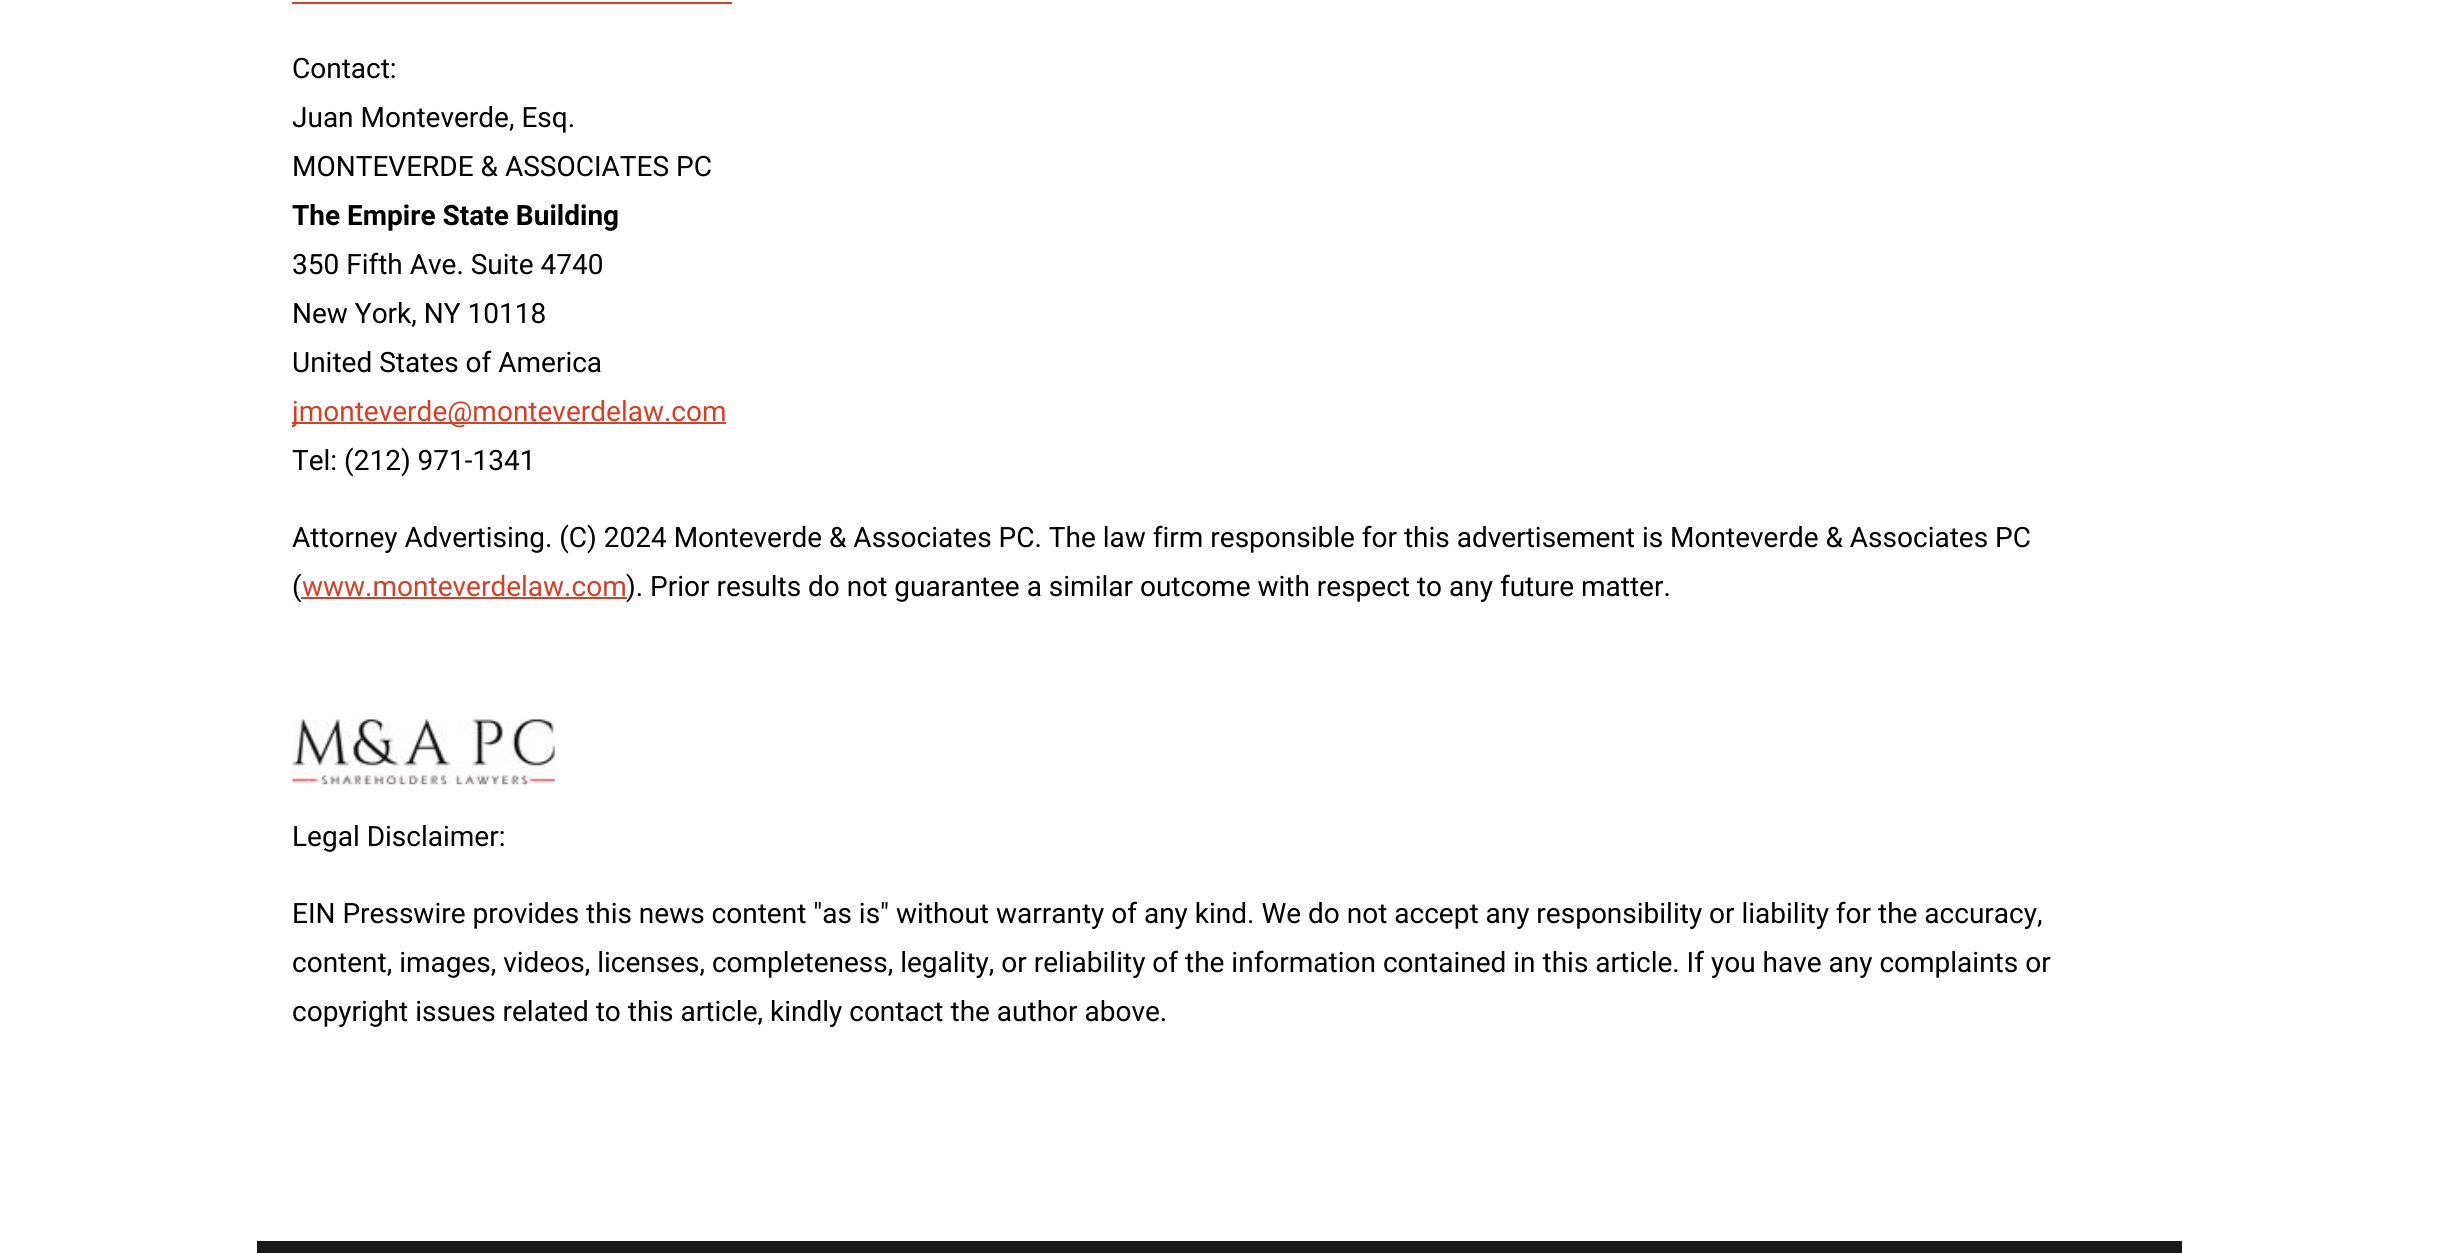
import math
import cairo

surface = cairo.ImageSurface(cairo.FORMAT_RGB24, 2438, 1253)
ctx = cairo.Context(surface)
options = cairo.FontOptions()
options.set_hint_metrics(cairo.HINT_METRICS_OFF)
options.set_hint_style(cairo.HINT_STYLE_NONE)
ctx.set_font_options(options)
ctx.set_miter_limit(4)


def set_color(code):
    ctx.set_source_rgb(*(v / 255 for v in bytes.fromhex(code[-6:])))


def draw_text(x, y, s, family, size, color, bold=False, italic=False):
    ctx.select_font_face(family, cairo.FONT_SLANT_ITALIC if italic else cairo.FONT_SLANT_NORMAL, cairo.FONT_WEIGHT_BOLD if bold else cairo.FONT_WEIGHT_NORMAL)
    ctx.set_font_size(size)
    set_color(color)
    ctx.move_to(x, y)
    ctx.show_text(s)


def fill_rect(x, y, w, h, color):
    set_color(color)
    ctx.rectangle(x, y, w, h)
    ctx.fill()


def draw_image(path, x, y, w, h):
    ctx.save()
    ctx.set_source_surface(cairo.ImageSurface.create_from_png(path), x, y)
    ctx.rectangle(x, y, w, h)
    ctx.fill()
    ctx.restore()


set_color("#ffffff")
ctx.paint()
fill_rect(292, 2, 440, 2, "#d93e25")
draw_text(292, 78, "Contact:", "Roboto", 28, "#000000")
draw_text(292, 127, "Juan Monteverde, Esq.", "Roboto", 28, "#000000")
draw_text(292, 176, "MONTEVERDE & ASSOCIATES PC", "Roboto", 28, "#000000")
draw_text(292, 225, "The Empire State Building", "Roboto", 28, "#000000", bold=True)
draw_text(292, 274, "350 Fifth Ave. Suite 4740", "Roboto", 28, "#000000")
draw_text(292, 323, "New York, NY 10118", "Roboto", 28, "#000000")
draw_text(292, 372, "United States of America", "Roboto", 28, "#000000")
fill_rect(292, 422, 434, 2, "#d93e25")
ctx.save()
ctx.rectangle(292, 0, 1855, 1066)
ctx.clip()
draw_text(292, 421, "jmonteverde@monteverdelaw.com", "Roboto", 28, "#d93e25")
ctx.restore()
draw_text(292, 470, "Tel: (212) 971-1341", "Roboto", 28, "#000000")
draw_text(292, 547, "Attorney Advertising. (C) 2024 Monteverde & Associates PC. The law firm responsible for this advertisement is Monteverde & Associates PC", "Roboto", 28, "#000000")
draw_text(292, 596, "(", "Roboto", 28, "#000000")
draw_text(302, 596, "www.monteverdelaw.com", "Roboto", 28, "#d93e25")
fill_rect(301, 597, 326, 2, "#d93e25")
draw_text(626, 596, "). Prior results do not guarantee a similar outcome with respect to any future matter.", "Roboto", 28, "#000000")
draw_image("assets/img1.png", 292, 719, 263, 66)
draw_text(292, 846, "Legal Disclaimer:", "Roboto", 28, "#000000")
draw_text(292, 923, "EIN Presswire provides this news content \"as is\" without warranty of any kind. We do not accept any responsibility or liability for the accuracy,", "Roboto", 28, "#000000")
draw_text(292, 972, "content, images, videos, licenses, completeness, legality, or reliability of the information contained in this article. If you have any complaints or", "Roboto", 28, "#000000")
draw_text(292, 1021, "copyright issues related to this article, kindly contact the author above.", "Roboto", 28, "#000000")
fill_rect(257, 1241, 1925, 12, "#191919")
surface.write_to_png("output.png")
